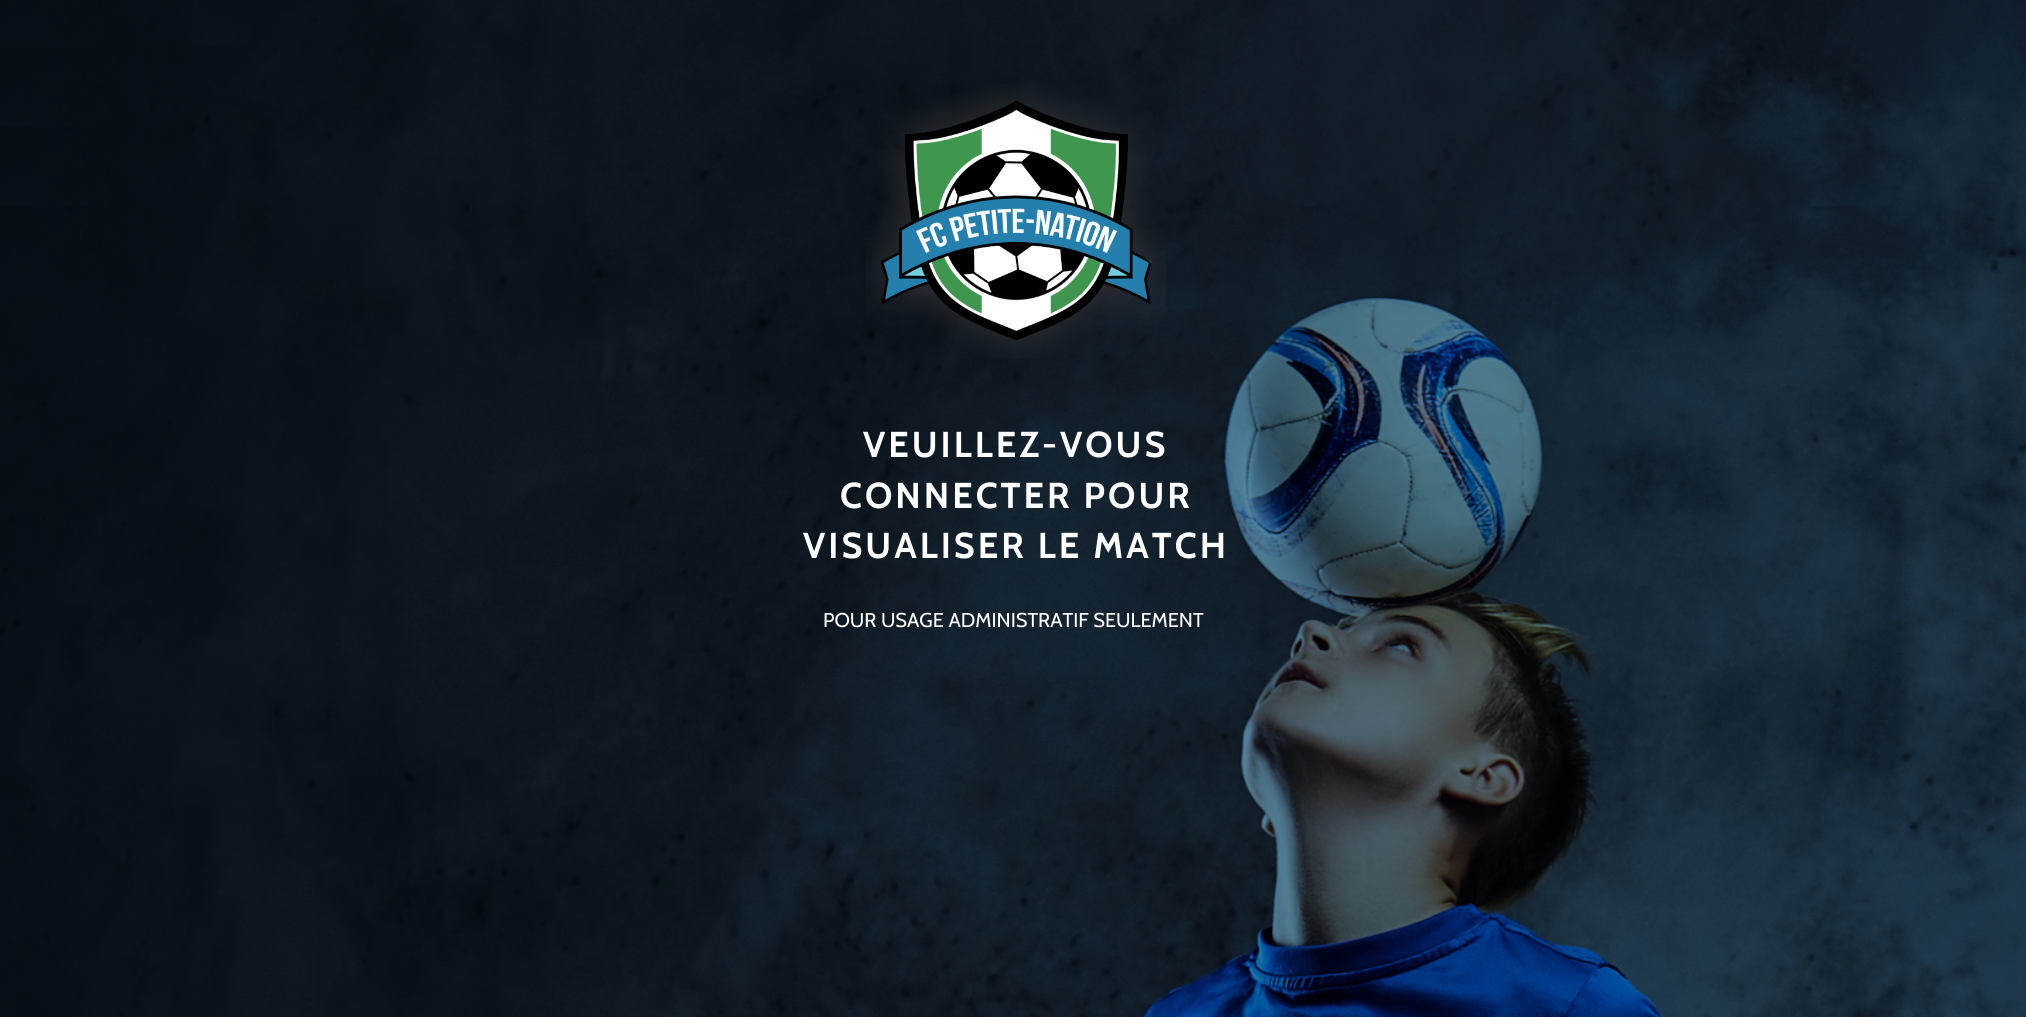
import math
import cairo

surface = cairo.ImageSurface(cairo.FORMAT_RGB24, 2026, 1017)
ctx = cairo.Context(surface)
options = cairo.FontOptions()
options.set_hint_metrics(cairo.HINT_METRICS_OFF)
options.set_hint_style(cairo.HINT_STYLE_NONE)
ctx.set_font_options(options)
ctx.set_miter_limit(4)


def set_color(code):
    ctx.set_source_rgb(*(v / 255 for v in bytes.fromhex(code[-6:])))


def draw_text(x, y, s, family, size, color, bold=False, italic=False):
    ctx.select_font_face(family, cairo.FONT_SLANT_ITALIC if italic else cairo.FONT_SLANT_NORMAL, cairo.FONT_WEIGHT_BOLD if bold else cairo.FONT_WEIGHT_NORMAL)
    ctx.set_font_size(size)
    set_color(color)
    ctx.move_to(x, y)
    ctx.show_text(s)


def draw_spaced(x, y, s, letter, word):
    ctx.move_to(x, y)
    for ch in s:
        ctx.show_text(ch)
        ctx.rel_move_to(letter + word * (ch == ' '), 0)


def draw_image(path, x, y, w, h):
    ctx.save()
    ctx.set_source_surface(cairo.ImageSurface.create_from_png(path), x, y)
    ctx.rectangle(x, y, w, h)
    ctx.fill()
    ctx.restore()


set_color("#ffffff")
ctx.paint()
draw_image("assets/img1.png", 0, 0, 2026, 1017)
draw_image("assets/img2.png", 866, 83, 300, 275)
ctx.select_font_face("Cabin", cairo.FONT_SLANT_NORMAL, cairo.FONT_WEIGHT_BOLD)
ctx.set_font_size(36)
set_color("#ffffff")
draw_spaced(863, 457, "VEUILLEZ-VOUS", 3, 0)
draw_spaced(840, 508, "CONNECTER POUR", 3, 0)
draw_spaced(803, 558, "VISUALISER LE MATCH", 3, 0)
draw_text(823, 627, "POUR USAGE ADMINISTRATIF SEULEMENT", "Cabin", 20, "#ffffff")
surface.write_to_png("output.png")
